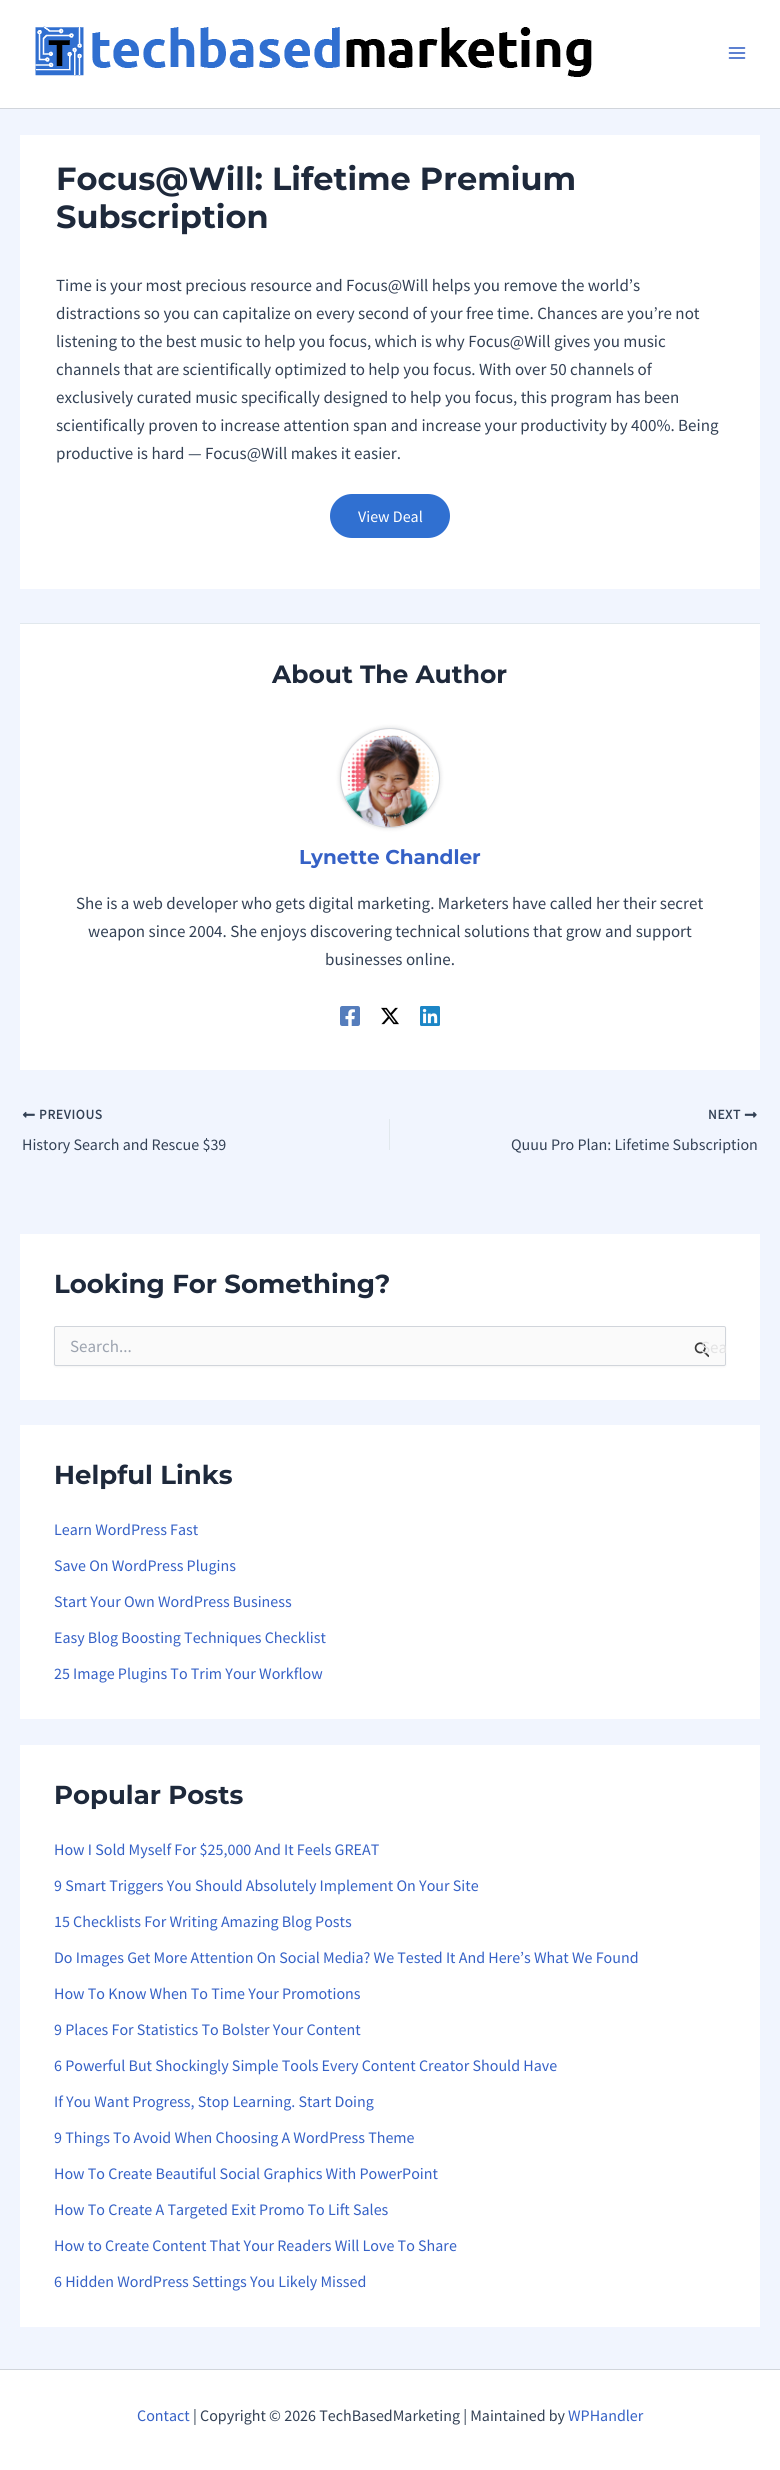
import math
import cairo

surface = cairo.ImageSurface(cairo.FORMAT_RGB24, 780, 2470)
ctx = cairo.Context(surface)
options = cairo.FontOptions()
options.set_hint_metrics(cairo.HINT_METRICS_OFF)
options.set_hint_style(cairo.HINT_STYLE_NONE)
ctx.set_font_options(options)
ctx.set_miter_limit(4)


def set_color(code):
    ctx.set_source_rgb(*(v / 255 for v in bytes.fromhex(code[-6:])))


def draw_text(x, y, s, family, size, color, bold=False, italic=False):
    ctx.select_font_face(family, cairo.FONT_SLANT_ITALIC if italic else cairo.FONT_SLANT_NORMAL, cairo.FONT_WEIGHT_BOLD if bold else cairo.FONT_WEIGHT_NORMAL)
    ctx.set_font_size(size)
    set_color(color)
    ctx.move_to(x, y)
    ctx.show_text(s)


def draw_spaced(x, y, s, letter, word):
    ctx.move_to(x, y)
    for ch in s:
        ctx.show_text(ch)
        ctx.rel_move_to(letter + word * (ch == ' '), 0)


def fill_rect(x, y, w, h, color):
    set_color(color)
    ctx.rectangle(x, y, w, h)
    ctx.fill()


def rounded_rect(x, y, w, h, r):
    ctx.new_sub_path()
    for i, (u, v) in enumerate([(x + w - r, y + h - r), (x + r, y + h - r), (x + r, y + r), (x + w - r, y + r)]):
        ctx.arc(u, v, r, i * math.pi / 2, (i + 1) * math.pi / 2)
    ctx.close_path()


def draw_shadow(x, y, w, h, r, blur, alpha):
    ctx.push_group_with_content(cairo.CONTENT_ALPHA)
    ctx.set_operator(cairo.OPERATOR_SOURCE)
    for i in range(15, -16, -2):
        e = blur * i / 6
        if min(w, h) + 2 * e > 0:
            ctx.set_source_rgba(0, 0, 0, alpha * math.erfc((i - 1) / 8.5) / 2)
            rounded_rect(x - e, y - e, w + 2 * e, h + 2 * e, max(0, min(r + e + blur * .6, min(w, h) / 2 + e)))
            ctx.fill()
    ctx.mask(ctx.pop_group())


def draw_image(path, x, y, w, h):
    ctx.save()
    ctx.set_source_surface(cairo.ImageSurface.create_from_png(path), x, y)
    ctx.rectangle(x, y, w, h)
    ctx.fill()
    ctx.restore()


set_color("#f1f5fe")
ctx.paint()
fill_rect(0, 0, 780, 108, "#ffffff")
fill_rect(0, 108, 780, 1, "#d1d5db")
draw_image("assets/img1.png", 35, 26, 557, 51)
draw_image("assets/img2.png", 728, 47, 18, 12)
fill_rect(20, 135, 740, 454, "#ffffff")
draw_text(56, 190, "Focus@Will: Lifetime Premium", "Montserrat Thin", 32, "#1e293b")
draw_text(56, 228, "Subscription", "Montserrat Thin", 32, "#1e293b")
draw_text(56, 291, "Time is your most precious resource and Focus@Will helps you remove the world’s", "Source Sans Pro", 17, "#334155")
draw_text(56, 319, "distractions so you can capitalize on every second of your free time. Chances are you’re not", "Source Sans Pro", 17, "#334155")
draw_text(56, 347, "listening to the best music to help you focus, which is why Focus@Will gives you music", "Source Sans Pro", 17, "#334155")
draw_text(56, 375, "channels that are scientifically optimized to help you focus. With over 50 channels of", "Source Sans Pro", 17, "#334155")
draw_text(56, 403, "exclusively curated music specifically designed to help you focus, this program has been", "Source Sans Pro", 17, "#334155")
draw_text(56, 431, "scientifically proven to increase attention span and increase your productivity by 400%. Being", "Source Sans Pro", 17, "#334155")
draw_text(56, 459, "productive is hard — Focus@Will makes it easier.", "Source Sans Pro", 17, "#334155")
set_color("#3070d1")
rounded_rect(330, 494, 120, 44, 22)
ctx.fill()
draw_text(358, 522, "View Deal", "Source Sans Pro", 16, "#ffffff")
fill_rect(20, 623, 740, 1, "#e1e8ed")
fill_rect(20, 624, 740, 446, "#ffffff")
draw_text(272, 683, "About The Author", "Montserrat Thin", 25, "#1e293b")
set_color("#000000")
draw_shadow(340, 728, 100, 100, 50, 2.5, 0.15)
ctx.arc(390, 778, 49.5, 0, 2 * math.pi)
set_color("#d1d5db")
ctx.set_line_width(1)
ctx.stroke()
draw_image("assets/img3.png", 341, 729, 98, 98)
draw_text(299, 864, "Lynette Chandler", "Montserrat Thin", 20, "#3561c6")
draw_text(76, 909, "She is a web developer who gets digital marketing. Marketers have called her their secret", "Source Sans Pro", 17, "#334155")
draw_text(88, 937, "weapon since 2004. She enjoys discovering technical solutions that grow and support", "Source Sans Pro", 17, "#334155")
draw_text(325, 965, "businesses online.", "Source Sans Pro", 17, "#334155")
draw_image("assets/img4.png", 340, 1006, 20, 20)
draw_image("assets/img5.png", 381, 1007, 18, 18)
draw_image("assets/img6.png", 420, 1006, 20, 20)
draw_image("assets/img7.png", 22, 1111, 13, 7)
ctx.select_font_face("Source Sans Pro", cairo.FONT_SLANT_NORMAL, cairo.FONT_WEIGHT_BOLD)
ctx.set_font_size(13.5)
draw_spaced(39, 1119, "PREVIOUS", 0.75, 0)
draw_text(22, 1150, "History Search and Rescue $39", "Source Sans Pro", 16, "#334155")
fill_rect(389, 1119, 1, 31, "#e1e8ed")
ctx.select_font_face("Source Sans Pro", cairo.FONT_SLANT_NORMAL, cairo.FONT_WEIGHT_BOLD)
ctx.set_font_size(13.5)
set_color("#334155")
draw_spaced(708, 1119, "NEXT", 0.75, 0)
draw_image("assets/img8.png", 744, 1111, 13, 7)
draw_text(511, 1150, "Quuu Pro Plan: Lifetime Subscription", "Source Sans Pro", 16, "#334155")
fill_rect(20, 1234, 740, 166, "#ffffff")
draw_text(54, 1293, "Looking For Something?", "Montserrat Thin", 26, "#1e293b")
set_color("#000000")
draw_shadow(54, 1327, 672, 40, 2, 1, 0.05)
set_color("#fafafa")
rounded_rect(54.5, 1326.5, 671, 39, 1.5)
ctx.fill_preserve()
set_color("#d1d5db")
ctx.stroke()
draw_text(70, 1352, "Search...", "Source Sans Pro", 17, "#9ca3af")
draw_image("assets/img9.png", 694, 1342, 15, 16)
draw_text(701, 1353, "Sea", "Source Sans Pro", 17, "#e3e3e4")
fill_rect(20, 1425, 740, 294, "#ffffff")
draw_text(54, 1484, "Helpful Links", "Montserrat Thin", 26, "#1e293b")
draw_text(54, 1535, "Learn WordPress Fast", "Source Sans Pro", 16, "#3561c6")
draw_text(54, 1571, "Save On WordPress Plugins", "Source Sans Pro", 16, "#3561c6")
draw_text(54, 1607, "Start Your Own WordPress Business", "Source Sans Pro", 16, "#3561c6")
draw_text(54, 1643, "Easy Blog Boosting Techniques Checklist", "Source Sans Pro", 16, "#3561c6")
draw_text(54, 1679, "25 Image Plugins To Trim Your Workflow", "Source Sans Pro", 16, "#3561c6")
fill_rect(20, 1745, 740, 582, "#ffffff")
draw_text(54, 1804, "Popular Posts", "Montserrat Thin", 26, "#1e293b")
draw_text(54, 1855, "How I Sold Myself For $25,000 And It Feels GREAT", "Source Sans Pro", 16, "#3561c6")
draw_text(54, 1891, "9 Smart Triggers You Should Absolutely Implement On Your Site", "Source Sans Pro", 16, "#3561c6")
draw_text(54, 1927, "15 Checklists For Writing Amazing Blog Posts", "Source Sans Pro", 16, "#3561c6")
draw_text(54, 1963, "Do Images Get More Attention On Social Media? We Tested It And Here’s What We Found", "Source Sans Pro", 16, "#3561c6")
draw_text(54, 1999, "How To Know When To Time Your Promotions", "Source Sans Pro", 16, "#3561c6")
draw_text(54, 2035, "9 Places For Statistics To Bolster Your Content", "Source Sans Pro", 16, "#3561c6")
draw_text(54, 2071, "6 Powerful But Shockingly Simple Tools Every Content Creator Should Have", "Source Sans Pro", 16, "#3561c6")
draw_text(54, 2107, "If You Want Progress, Stop Learning. Start Doing", "Source Sans Pro", 16, "#3561c6")
draw_text(54, 2143, "9 Things To Avoid When Choosing A WordPress Theme", "Source Sans Pro", 16, "#3561c6")
draw_text(54, 2179, "How To Create Beautiful Social Graphics With PowerPoint", "Source Sans Pro", 16, "#3561c6")
draw_text(54, 2215, "How To Create A Targeted Exit Promo To Lift Sales", "Source Sans Pro", 16, "#3561c6")
draw_text(54, 2251, "How to Create Content That Your Readers Will Love To Share", "Source Sans Pro", 16, "#3561c6")
draw_text(54, 2287, "6 Hidden WordPress Settings You Likely Missed", "Source Sans Pro", 16, "#3561c6")
fill_rect(0, 2370, 780, 100, "#ffffff")
fill_rect(0, 2369, 780, 1, "#d1d5db")
draw_text(137, 2421, "Contact", "Source Sans Pro", 16, "#3561c6")
draw_text(193, 2421, "| Copyright © 2026 TechBasedMarketing | Maintained by", "Source Sans Pro", 16, "#334155")
draw_text(568, 2421, "WPHandler", "Source Sans Pro", 16, "#3561c6")
surface.write_to_png("output.png")
